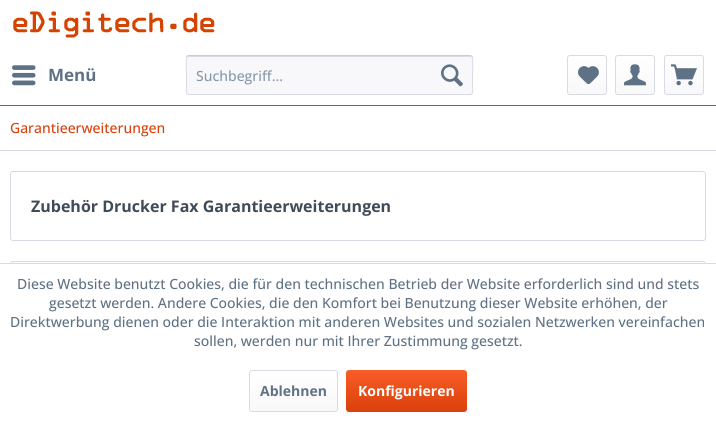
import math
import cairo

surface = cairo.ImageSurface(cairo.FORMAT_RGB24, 716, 422)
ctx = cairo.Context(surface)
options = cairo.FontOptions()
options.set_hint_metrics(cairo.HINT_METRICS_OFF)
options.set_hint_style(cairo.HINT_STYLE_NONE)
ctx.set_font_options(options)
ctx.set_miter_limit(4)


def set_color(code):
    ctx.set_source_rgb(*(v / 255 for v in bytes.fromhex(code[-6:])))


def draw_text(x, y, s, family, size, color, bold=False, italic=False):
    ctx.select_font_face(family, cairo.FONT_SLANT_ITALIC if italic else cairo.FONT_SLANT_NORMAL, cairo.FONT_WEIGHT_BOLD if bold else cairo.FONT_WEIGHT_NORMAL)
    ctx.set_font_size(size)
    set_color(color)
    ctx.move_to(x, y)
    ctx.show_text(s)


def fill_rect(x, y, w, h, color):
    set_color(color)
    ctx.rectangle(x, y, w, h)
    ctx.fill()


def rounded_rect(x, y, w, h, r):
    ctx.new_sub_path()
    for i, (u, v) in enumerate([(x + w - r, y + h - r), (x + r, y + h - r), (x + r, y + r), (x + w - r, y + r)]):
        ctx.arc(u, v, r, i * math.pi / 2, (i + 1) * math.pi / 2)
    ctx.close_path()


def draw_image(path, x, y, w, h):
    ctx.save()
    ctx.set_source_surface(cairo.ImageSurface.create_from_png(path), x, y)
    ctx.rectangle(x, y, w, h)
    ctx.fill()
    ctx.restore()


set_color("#ffffff")
ctx.paint()
fill_rect(0, 105, 716, 1, "#d9400b")
draw_image("assets/img1.png", 13, 11, 202, 27)
draw_image("assets/img2.png", 12, 65, 24, 21)
draw_text(48, 81, "Menü", "Open Sans", 17, "#5f7285", bold=True)
set_color("#f8f8fa")
rounded_rect(186, 55, 287, 40, 3)
ctx.fill()
set_color("#dadae5")
ctx.new_path()
ctx.move_to(189, 57)
ctx.line_to(470, 57)
ctx.curve_to(471, 57, 472, 58, 472, 59)
ctx.curve_to(472, 58, 472, 56, 470, 56)
ctx.line_to(189, 56)
ctx.curve_to(187, 56, 187, 58, 187, 59)
ctx.curve_to(187, 58, 188, 57, 189, 57)
ctx.close_path()
ctx.fill()
ctx.new_path()
ctx.move_to(187, 56)
ctx.line_to(188.5, 55.5)
ctx.line_to(282.5, 55.5)
ctx.line_to(470, 55.5)
ctx.line_to(472, 56)
set_color("#cbcbdb")
ctx.set_line_width(1)
ctx.stroke()
ctx.new_path()
ctx.move_to(472, 56)
ctx.curve_to(473.5, 58, 472.5, 72, 472.5, 75)
ctx.line_to(472.5, 86.5)
ctx.curve_to(472.5, 88, 474, 94.5, 470, 94.5)
ctx.line_to(189, 94.5)
ctx.curve_to(185, 94.5, 186.5, 88, 186.5, 86.5)
ctx.line_to(186.5, 75)
ctx.curve_to(186.5, 72, 185.5, 58, 187, 56)
set_color("#dadae5")
ctx.stroke()
draw_text(196, 81, "Suchbegriff...", "Open Sans Medium", 14, "#8798a9")
draw_image("assets/img3.png", 441, 64, 22, 23)
gradient = cairo.LinearGradient(587, 56, 587, 94)
gradient.add_color_stop_rgba(0, 1, 1, 1, 1)
gradient.add_color_stop_rgba(1, 0.973, 0.973, 0.98, 1)
ctx.set_source(gradient)
rounded_rect(568, 56, 38, 38, 2)
ctx.fill()
rounded_rect(567.5, 55.5, 39, 39, 2.5)
set_color("#dadae5")
ctx.stroke()
draw_image("assets/img4.png", 578, 66, 21, 19)
gradient = cairo.LinearGradient(635, 56, 635, 94)
gradient.add_color_stop_rgba(0, 1, 1, 1, 1)
gradient.add_color_stop_rgba(1, 0.973, 0.973, 0.98, 1)
ctx.set_source(gradient)
rounded_rect(616, 56, 38, 38, 2)
ctx.fill()
rounded_rect(615.5, 55.5, 39, 39, 2.5)
set_color("#dadae5")
ctx.stroke()
draw_image("assets/img5.png", 624, 64, 22, 22)
gradient = cairo.LinearGradient(684, 56, 684, 94)
gradient.add_color_stop_rgba(0, 1, 1, 1, 1)
gradient.add_color_stop_rgba(1, 0.973, 0.973, 0.98, 1)
ctx.set_source(gradient)
rounded_rect(665, 56, 38, 38, 2)
ctx.fill()
rounded_rect(664.5, 55.5, 39, 39, 2.5)
set_color("#dadae5")
ctx.stroke()
draw_image("assets/img6.png", 671, 64, 26, 22)
fill_rect(0, 150, 716, 1, "#dadae5")
draw_text(10, 133, "Garantieerweiterungen", "Open Sans Medium", 14, "#d9400b")
rounded_rect(10.5, 171.5, 695, 69, 2.5)
set_color("#dadae5")
ctx.stroke()
draw_text(31, 212, "Zubehör Drucker Fax Garantieerweiterungen", "Open Sans", 16, "#3f4c58", bold=True)
gradient = cairo.LinearGradient(358, 262, 358, 294)
gradient.add_color_stop_rgba(0, 1, 1, 1, 1)
gradient.add_color_stop_rgba(1, 0.973, 0.973, 0.98, 1)
ctx.set_source(gradient)
rounded_rect(11, 262, 694, 32, 2)
ctx.fill()
rounded_rect(10.5, 261.5, 695, 33, 2.5)
set_color("#dadae5")
ctx.stroke()
fill_rect(10, 264, 696, 31, "#ffffff")
fill_rect(0, 263, 716, 1, "#dadae5")
draw_text(17, 289, "Diese Website benutzt Cookies, die für den technischen Betrieb der Website erforderlich sind und stets", "Open Sans Medium", 14, "#5f7285")
draw_text(49, 308, "gesetzt werden. Andere Cookies, die den Komfort bei Benutzung dieser Website erhöhen, der", "Open Sans Medium", 14, "#5f7285")
draw_text(10, 327, "Direktwerbung dienen oder die Interaktion mit anderen Websites und sozialen Netzwerken vereinfachen", "Open Sans Medium", 14, "#5f7285")
draw_text(194, 346, "sollen, werden nur mit Ihrer Zustimmung gesetzt.", "Open Sans Medium", 14, "#5f7285")
gradient = cairo.LinearGradient(294, 371, 294, 411)
gradient.add_color_stop_rgba(0, 1, 1, 1, 1)
gradient.add_color_stop_rgba(1, 0.973, 0.973, 0.98, 1)
ctx.set_source(gradient)
rounded_rect(250, 371, 87, 40, 2)
ctx.fill()
rounded_rect(249.5, 370.5, 88, 41, 2.5)
set_color("#dadae5")
ctx.stroke()
draw_text(260, 396, "Ablehnen", "Open Sans", 14, "#5f7285", bold=True)
gradient = cairo.LinearGradient(407, 370, 407, 412)
gradient.add_color_stop_rgba(0, 0.98, 0.365, 0.153, 1)
gradient.add_color_stop_rgba(1, 0.851, 0.251, 0.043, 1)
ctx.set_source(gradient)
rounded_rect(346, 370, 121, 42, 3)
ctx.fill()
draw_text(358, 396, "Konfigurieren", "Open Sans", 14, "#ffffff", bold=True)
surface.write_to_png("output.png")
